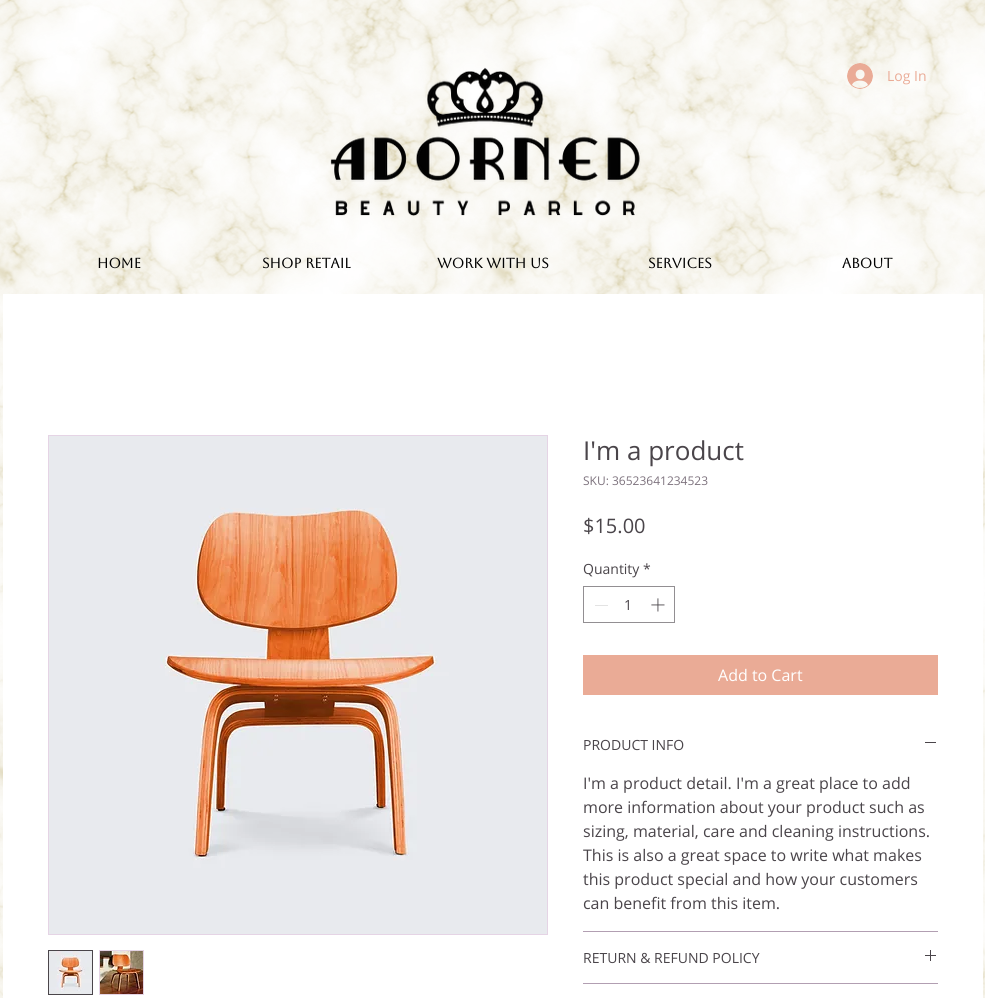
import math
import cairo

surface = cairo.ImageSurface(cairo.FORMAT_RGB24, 985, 998)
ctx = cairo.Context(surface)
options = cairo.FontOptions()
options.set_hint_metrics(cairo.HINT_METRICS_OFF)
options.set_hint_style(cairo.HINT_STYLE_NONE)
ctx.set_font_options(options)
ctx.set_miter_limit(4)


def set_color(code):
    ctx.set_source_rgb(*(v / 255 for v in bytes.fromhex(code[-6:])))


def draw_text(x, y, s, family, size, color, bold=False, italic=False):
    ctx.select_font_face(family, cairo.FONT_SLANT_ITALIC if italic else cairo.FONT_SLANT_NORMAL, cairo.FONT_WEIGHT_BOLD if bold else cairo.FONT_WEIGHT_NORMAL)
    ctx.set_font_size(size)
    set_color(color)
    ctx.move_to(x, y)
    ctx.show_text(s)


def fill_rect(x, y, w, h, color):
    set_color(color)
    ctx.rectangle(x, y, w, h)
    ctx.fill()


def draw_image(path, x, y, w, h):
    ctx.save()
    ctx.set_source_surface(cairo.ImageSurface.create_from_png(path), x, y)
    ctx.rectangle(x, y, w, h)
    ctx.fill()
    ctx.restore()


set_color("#ffffff")
ctx.paint()
draw_image("assets/img1.png", 0, 0, 985, 998)
draw_image("assets/img2.png", 330, 67, 311, 149)
draw_image("assets/img3.png", 847, 63, 26, 26)
draw_text(887, 81, "Log In", "Open Sans", 14, "#eaab96")
draw_text(97, 268, "Home", "Aboreto", 14, "#000000", bold=True)
draw_text(262, 268, "Shop Retail", "Aboreto", 14, "#000000", bold=True)
draw_text(437, 268, "Work With Us", "Aboreto", 14, "#000000", bold=True)
draw_text(648, 268, "Services", "Aboreto", 14, "#000000", bold=True)
draw_text(842, 268, "About", "Aboreto", 14, "#000000", bold=True)
fill_rect(3, 294, 980, 704, "#ffffff")
ctx.rectangle(48.5, 435.5, 499, 499)
set_color("#e5d4e5")
ctx.set_line_width(1)
ctx.stroke()
draw_image("assets/img4.png", 49, 436, 498, 498)
ctx.rectangle(48.5, 950.5, 44, 44)
set_color("#4a454a")
ctx.stroke()
draw_image("assets/img5.png", 49, 951, 43, 43)
fill_rect(99, 950, 45, 45, "#e5d4e5")
draw_image("assets/img6.png", 100, 951, 43, 43)
draw_text(583, 460, "I'm a product", "Open Sans", 26, "#4a454a")
draw_text(583, 485, "SKU: 36523641234523", "Open Sans", 12, "#7d727d")
draw_text(583, 533, "$15.00", "Open Sans", 20, "#4a454a")
draw_text(583, 574, "Quantity", "Open Sans", 14, "#4a454a")
draw_text(643, 574, "*", "Open Sans", 14, "#4a454a")
ctx.rectangle(583.5, 586.5, 91, 36)
set_color("#928f92")
ctx.stroke()
fill_rect(595, 605, 13, 1, "#e3e3e3")
draw_text(624, 610, "1", "Open Sans", 14, "#4a454a")
draw_image("assets/img7.png", 651, 598, 14, 14)
fill_rect(583, 655, 355, 40, "#eaab96")
draw_text(718, 681, "Add to Cart", "Open Sans", 16, "#ffffff")
fill_rect(583, 931, 355, 1, "#b29fb2")
draw_text(583, 750, "PRODUCT INFO", "Open Sans", 14, "#4a454a")
fill_rect(925, 742, 11, 1, "#4a454a")
draw_text(583, 789, "I'm a product detail. I'm a great place to add", "Open Sans", 16, "#4a454a")
draw_text(583, 813, "more information about your product such as", "Open Sans", 16, "#4a454a")
draw_text(583, 837, "sizing, material, care and cleaning instructions.", "Open Sans", 16, "#4a454a")
draw_text(583, 861, "This is also a great space to write what makes", "Open Sans", 16, "#4a454a")
draw_text(583, 885, "this product special and how your customers", "Open Sans", 16, "#4a454a")
draw_text(583, 909, "can benefit from this item.", "Open Sans", 16, "#4a454a")
fill_rect(583, 983, 355, 1, "#b29fb2")
draw_text(583, 963, "RETURN & REFUND POLICY", "Open Sans", 14, "#4a454a")
draw_image("assets/img8.png", 925, 950, 11, 11)
surface.write_to_png("output.png")
